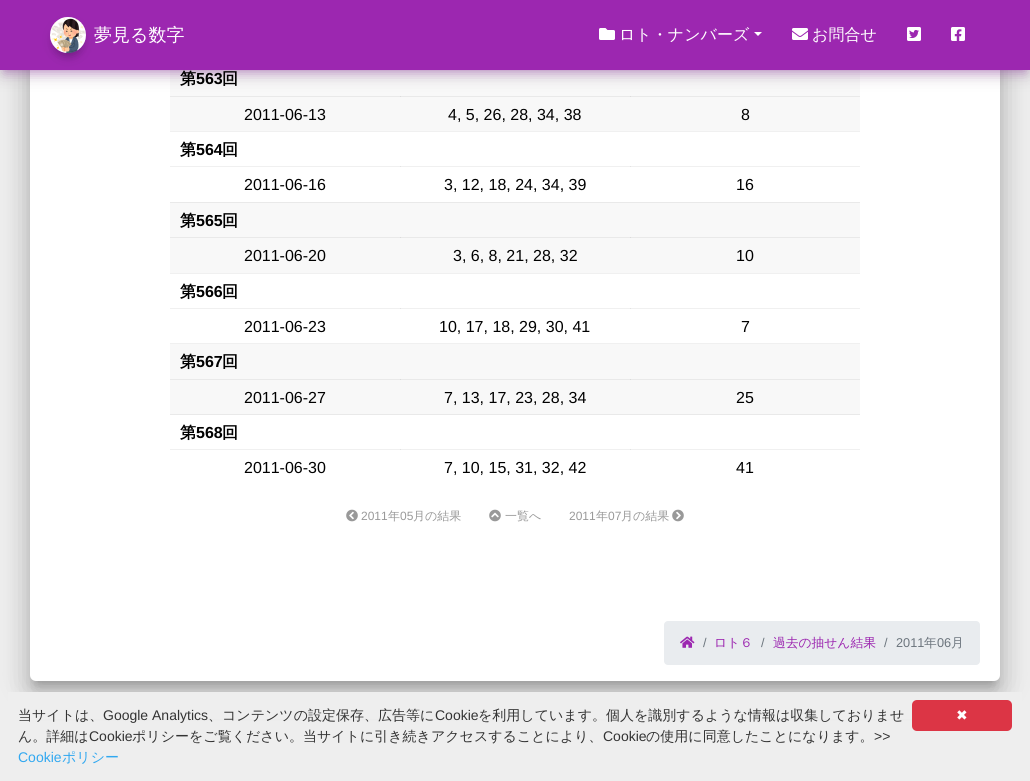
import math
import cairo

surface = cairo.ImageSurface(cairo.FORMAT_RGB24, 1030, 781)
ctx = cairo.Context(surface)
options = cairo.FontOptions()
options.set_hint_metrics(cairo.HINT_METRICS_OFF)
options.set_hint_style(cairo.HINT_STYLE_NONE)
ctx.set_font_options(options)
ctx.set_miter_limit(4)


def set_color(code):
    ctx.set_source_rgb(*(v / 255 for v in bytes.fromhex(code[-6:])))


def draw_text(x, y, s, family, size, color, bold=False, italic=False):
    ctx.select_font_face(family, cairo.FONT_SLANT_ITALIC if italic else cairo.FONT_SLANT_NORMAL, cairo.FONT_WEIGHT_BOLD if bold else cairo.FONT_WEIGHT_NORMAL)
    ctx.set_font_size(size)
    set_color(color)
    ctx.move_to(x, y)
    ctx.show_text(s)


def fill_rect(x, y, w, h, color):
    set_color(color)
    ctx.rectangle(x, y, w, h)
    ctx.fill()


def rounded_rect(x, y, w, h, r):
    ctx.new_sub_path()
    for i, (u, v) in enumerate([(x + w - r, y + h - r), (x + r, y + h - r), (x + r, y + r), (x + w - r, y + r)]):
        ctx.arc(u, v, r, i * math.pi / 2, (i + 1) * math.pi / 2)
    ctx.close_path()


def draw_shadow(x, y, w, h, r, blur, alpha):
    ctx.push_group_with_content(cairo.CONTENT_ALPHA)
    ctx.set_operator(cairo.OPERATOR_SOURCE)
    for i in range(15, -16, -2):
        e = blur * i / 6
        if min(w, h) + 2 * e > 0:
            ctx.set_source_rgba(0, 0, 0, alpha * math.erfc((i - 1) / 8.5) / 2)
            rounded_rect(x - e, y - e, w + 2 * e, h + 2 * e, max(0, min(r + e + blur * .6, min(w, h) / 2 + e)))
            ctx.fill()
    ctx.mask(ctx.pop_group())


def draw_image(path, x, y, w, h):
    ctx.save()
    ctx.set_source_surface(cairo.ImageSurface.create_from_png(path), x, y)
    ctx.rectangle(x, y, w, h)
    ctx.fill()
    ctx.restore()


set_color("#eeeeee")
ctx.paint()
set_color("#000000")
draw_shadow(35, -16, 960, 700, 1, 5, 0.2)
draw_shadow(25, -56, 980, 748, 11, 15, 0.12)
draw_shadow(28, -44, 974, 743, 8, 12, 0.14)
set_color("#ffffff")
rounded_rect(30, -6, 970, 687, 6)
ctx.fill()
fill_rect(170, 70, 690, 26, "#f8f8f8")
set_color("#9c27b0")
draw_shadow(5, 12, 1020, 60, 0, 6, 0.46)
fill_rect(170, 97, 690, 34, "#f8f8f8")
fill_rect(170, 96, 690, 1, "#e9e9e9")
fill_rect(400, 96, 1, 1, "#dbdbdb")
fill_rect(630, 96, 1, 1, "#dbdbdb")
set_color("#000000")
draw_shadow(0, 4, 1030, 70, 0, 10, 0.14)
fill_rect(0, 0, 1030, 70, "#9c27b0")
set_color("#000000")
draw_shadow(58, 30, 20, 20, 10, 7.5, 0.24)
draw_shadow(55, 30, 26, 26, 13, 5, 0.2)
draw_image("assets/img1.png", 50, 17, 36, 36)
draw_text(94, 41, "夢見る数字", "WenQuanYi Zen Hei Medium", 18, "#ffffff")
draw_image("assets/img2.png", 599, 28, 16, 12)
draw_text(619, 40, "ロト・ナンバーズ", "WenQuanYi Zen Hei Medium", 16, "#ffffff")
ctx.new_path()
ctx.move_to(754, 32)
ctx.line_to(762, 32)
ctx.line_to(758, 36)
ctx.close_path()
ctx.fill()
draw_image("assets/img3.png", 792, 28, 16, 12)
draw_text(812, 40, "お問合せ", "WenQuanYi Zen Hei Medium", 16, "#ffffff")
draw_image("assets/img4.png", 907, 27, 14, 14)
draw_image("assets/img5.png", 951, 27, 14, 14)
fill_rect(170, 166, 690, 1, "#f0f0f0")
fill_rect(400, 166, 1, 1, "#e2e2e2")
fill_rect(170, 308, 690, 1, "#f0f0f0")
fill_rect(400, 308, 1, 1, "#e2e2e2")
fill_rect(170, 449, 690, 1, "#f0f0f0")
fill_rect(400, 449, 1, 1, "#e2e2e2")
draw_text(180, 84, "第", "WenQuanYi Zen Hei", 16, "#000000", bold=True)
draw_text(196, 84, "563", "Liberation Sans", 16, "#000000", bold=True)
draw_text(222, 84, "回", "WenQuanYi Zen Hei", 16, "#000000", bold=True)
draw_text(244, 120, "2011-06-13", "Liberation Sans", 16, "#000000")
draw_text(448, 120, "4, 5, 26, 28, 34, 38", "Liberation Sans", 16, "#000000")
draw_text(741, 120, "8", "Liberation Sans", 16, "#000000")
fill_rect(170, 131, 690, 1, "#f0f0f0")
draw_text(180, 155, "第", "WenQuanYi Zen Hei", 16, "#000000", bold=True)
draw_text(196, 155, "564", "Liberation Sans", 16, "#000000", bold=True)
draw_text(222, 155, "回", "WenQuanYi Zen Hei", 16, "#000000", bold=True)
draw_text(244, 190, "2011-06-16", "Liberation Sans", 16, "#000000")
draw_text(444, 190, "3, 12, 18, 24, 34, 39", "Liberation Sans", 16, "#000000")
fill_rect(630, 166, 1, 1, "#e2e2e2")
draw_text(736, 190, "16", "Liberation Sans", 16, "#000000")
fill_rect(170, 203, 690, 34, "#f8f8f8")
fill_rect(170, 237, 690, 1, "#e9e9e9")
fill_rect(400, 237, 1, 1, "#dbdbdb")
fill_rect(170, 202, 690, 1, "#e9e9e9")
draw_text(180, 226, "第", "WenQuanYi Zen Hei", 16, "#000000", bold=True)
draw_text(196, 226, "565", "Liberation Sans", 16, "#000000", bold=True)
draw_text(222, 226, "回", "WenQuanYi Zen Hei", 16, "#000000", bold=True)
fill_rect(170, 238, 690, 35, "#f8f8f8")
draw_text(244, 261, "2011-06-20", "Liberation Sans", 16, "#000000")
draw_text(453, 261, "3, 6, 8, 21, 28, 32", "Liberation Sans", 16, "#000000")
fill_rect(630, 237, 1, 1, "#dbdbdb")
draw_text(736, 261, "10", "Liberation Sans", 16, "#000000")
fill_rect(170, 273, 690, 1, "#f0f0f0")
draw_text(180, 297, "第", "WenQuanYi Zen Hei", 16, "#000000", bold=True)
draw_text(196, 297, "566", "Liberation Sans", 16, "#000000", bold=True)
draw_text(222, 297, "回", "WenQuanYi Zen Hei", 16, "#000000", bold=True)
draw_text(244, 332, "2011-06-23", "Liberation Sans", 16, "#000000")
draw_text(439, 332, "10, 17, 18, 29, 30, 41", "Liberation Sans", 16, "#000000")
fill_rect(630, 308, 1, 1, "#e2e2e2")
draw_text(741, 332, "7", "Liberation Sans", 16, "#000000")
fill_rect(170, 344, 690, 35, "#f8f8f8")
fill_rect(170, 343, 690, 1, "#f0f0f0")
draw_text(180, 367, "第", "WenQuanYi Zen Hei", 16, "#000000", bold=True)
draw_text(196, 367, "567", "Liberation Sans", 16, "#000000", bold=True)
draw_text(222, 367, "回", "WenQuanYi Zen Hei", 16, "#000000", bold=True)
fill_rect(170, 380, 690, 34, "#f8f8f8")
fill_rect(170, 379, 690, 1, "#e9e9e9")
fill_rect(400, 379, 1, 1, "#dbdbdb")
draw_text(244, 403, "2011-06-27", "Liberation Sans", 16, "#000000")
draw_text(444, 403, "7, 13, 17, 23, 28, 34", "Liberation Sans", 16, "#000000")
fill_rect(630, 379, 1, 1, "#dbdbdb")
draw_text(736, 403, "25", "Liberation Sans", 16, "#000000")
fill_rect(170, 414, 690, 1, "#e9e9e9")
draw_text(180, 438, "第", "WenQuanYi Zen Hei", 16, "#000000", bold=True)
draw_text(196, 438, "568", "Liberation Sans", 16, "#000000", bold=True)
draw_text(222, 438, "回", "WenQuanYi Zen Hei", 16, "#000000", bold=True)
draw_text(244, 473, "2011-06-30", "Liberation Sans", 16, "#000000")
draw_text(444, 473, "7, 10, 15, 31, 32, 42", "Liberation Sans", 16, "#000000")
fill_rect(630, 449, 1, 1, "#e2e2e2")
draw_text(736, 473, "41", "Liberation Sans", 16, "#000000")
draw_image("assets/img6.png", 346, 509, 12, 13)
draw_text(361, 520, "2011", "Liberation Sans", 12, "#999999")
draw_text(388, 520, "年", "WenQuanYi Zen Hei Medium", 12, "#999999")
draw_text(400, 520, "05", "Liberation Sans", 12, "#999999")
draw_text(413, 520, "月の結果", "WenQuanYi Zen Hei Medium", 12, "#999999")
draw_image("assets/img7.png", 489, 509, 12, 13)
draw_text(505, 520, "一覧へ", "WenQuanYi Zen Hei Medium", 12, "#999999")
draw_text(569, 520, "2011", "Liberation Sans", 12, "#999999")
draw_text(596, 520, "年", "WenQuanYi Zen Hei Medium", 12, "#999999")
draw_text(608, 520, "07", "Liberation Sans", 12, "#999999")
draw_text(621, 520, "月の結果", "WenQuanYi Zen Hei Medium", 12, "#999999")
draw_image("assets/img8.png", 672, 509, 12, 13)
set_color("#e9ecef")
rounded_rect(664, 621, 316, 44, 4)
ctx.fill()
draw_image("assets/img9.png", 680, 636, 15, 12)
draw_text(703, 647, "/", "Liberation Sans", 12.75, "#6c757d")
draw_text(714, 647, "ロト６", "WenQuanYi Zen Hei Medium", 12.75, "#9c27b0")
draw_text(761, 647, "/", "Liberation Sans", 12.75, "#6c757d")
draw_text(773, 647, "過去の抽せん結果", "WenQuanYi Zen Hei Medium", 12.75, "#9c27b0")
draw_text(884, 647, "/", "Liberation Sans", 12.75, "#6c757d")
draw_text(896, 647, "2011", "Liberation Sans", 12.75, "#6c757d")
draw_text(924, 647, "年", "WenQuanYi Zen Hei Medium", 12.75, "#6c757d")
draw_text(937, 647, "06", "Liberation Sans", 12.75, "#6c757d")
draw_text(951, 647, "月", "WenQuanYi Zen Hei Medium", 12.75, "#6c757d")
fill_rect(8, 692, 1014, 27, "#eeeeee")
draw_text(18, 720, "当サイトは、", "WenQuanYi Zen Hei Medium", 14, "#333333")
draw_text(103, 720, "Google Analytics", "Liberation Sans", 14, "#333333")
draw_text(208, 720, "、コンテンツの設定保存、広告等に", "WenQuanYi Zen Hei Medium", 14, "#333333")
draw_text(435, 720, "Cookie", "Liberation Sans", 14, "#333333")
draw_text(478, 720, "を利用しています。個人を識別するような情報は収集しておりませ", "WenQuanYi Zen Hei Medium", 14, "#333333")
draw_text(18, 741, "ん。詳細は", "WenQuanYi Zen Hei Medium", 14, "#333333")
draw_text(89, 741, "Cookie", "Liberation Sans", 14, "#333333")
draw_text(132, 741, "ポリシーをご覧ください。当サイトに引き続きアクセスすることにより、", "WenQuanYi Zen Hei Medium", 14, "#333333")
draw_text(603, 741, "Cookie", "Liberation Sans", 14, "#333333")
draw_text(646, 741, "の使用に同意したことになります。", "WenQuanYi Zen Hei Medium", 14, "#333333")
draw_text(874, 741, ">>", "Liberation Sans", 14, "#333333")
draw_text(18, 762, "Cookie", "Liberation Sans", 14, "#31a8f0")
draw_text(62, 762, "ポリシー", "WenQuanYi Zen Hei Medium", 14, "#31a8f0")
set_color("#dc3545")
rounded_rect(912, 700, 100, 31, 5)
ctx.fill()
draw_text(956, 720, "✖", "DejaVu Sans", 14, "#ffffff")
surface.write_to_png("output.png")
